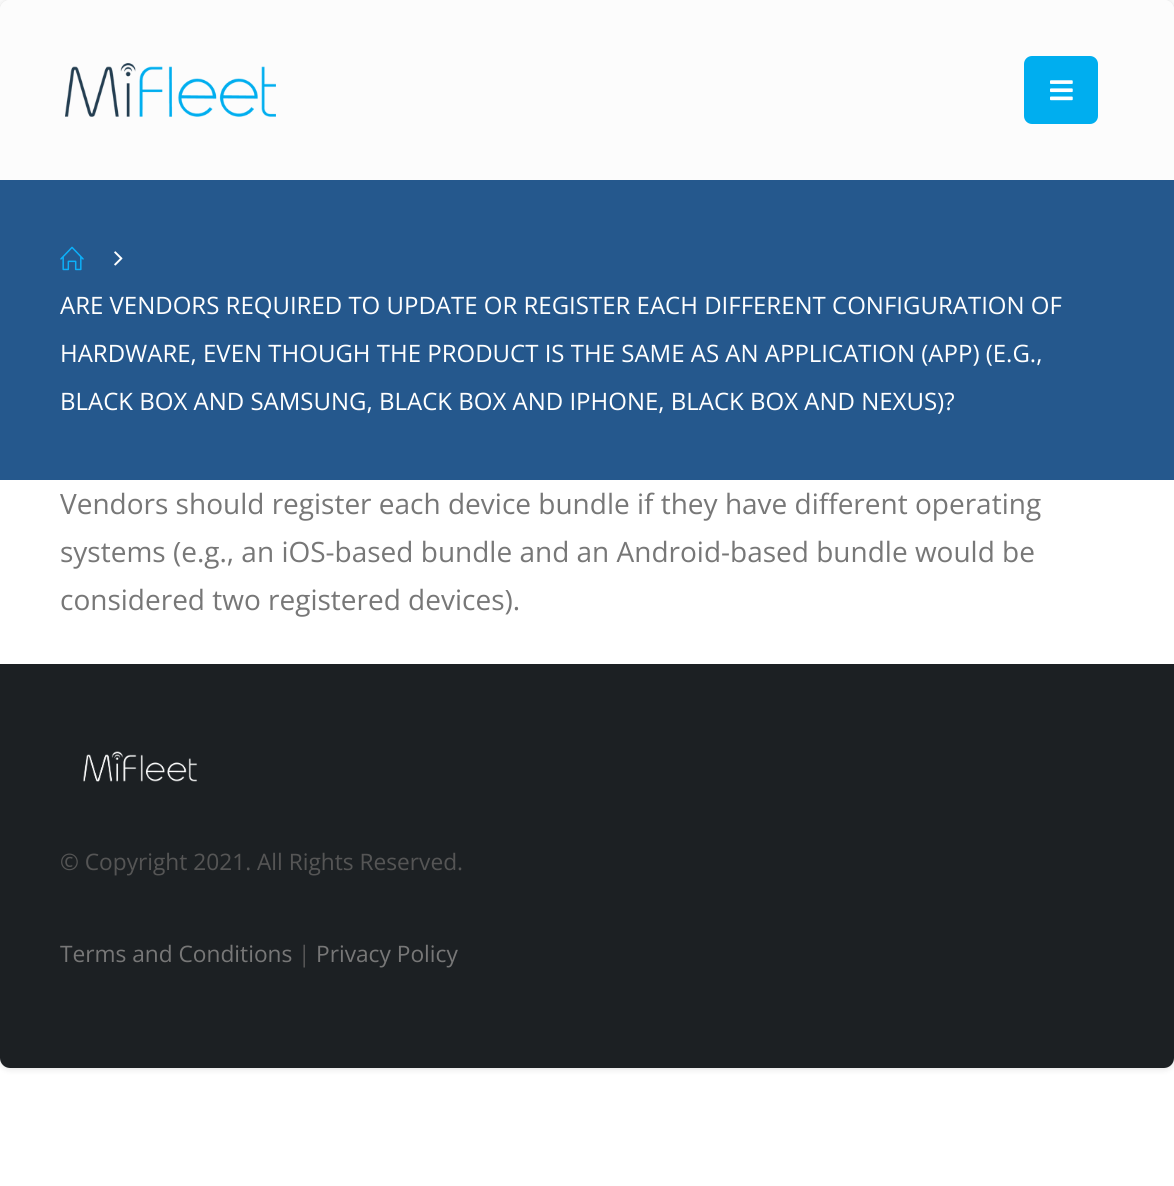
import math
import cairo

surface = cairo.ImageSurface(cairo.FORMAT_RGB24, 1174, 1186)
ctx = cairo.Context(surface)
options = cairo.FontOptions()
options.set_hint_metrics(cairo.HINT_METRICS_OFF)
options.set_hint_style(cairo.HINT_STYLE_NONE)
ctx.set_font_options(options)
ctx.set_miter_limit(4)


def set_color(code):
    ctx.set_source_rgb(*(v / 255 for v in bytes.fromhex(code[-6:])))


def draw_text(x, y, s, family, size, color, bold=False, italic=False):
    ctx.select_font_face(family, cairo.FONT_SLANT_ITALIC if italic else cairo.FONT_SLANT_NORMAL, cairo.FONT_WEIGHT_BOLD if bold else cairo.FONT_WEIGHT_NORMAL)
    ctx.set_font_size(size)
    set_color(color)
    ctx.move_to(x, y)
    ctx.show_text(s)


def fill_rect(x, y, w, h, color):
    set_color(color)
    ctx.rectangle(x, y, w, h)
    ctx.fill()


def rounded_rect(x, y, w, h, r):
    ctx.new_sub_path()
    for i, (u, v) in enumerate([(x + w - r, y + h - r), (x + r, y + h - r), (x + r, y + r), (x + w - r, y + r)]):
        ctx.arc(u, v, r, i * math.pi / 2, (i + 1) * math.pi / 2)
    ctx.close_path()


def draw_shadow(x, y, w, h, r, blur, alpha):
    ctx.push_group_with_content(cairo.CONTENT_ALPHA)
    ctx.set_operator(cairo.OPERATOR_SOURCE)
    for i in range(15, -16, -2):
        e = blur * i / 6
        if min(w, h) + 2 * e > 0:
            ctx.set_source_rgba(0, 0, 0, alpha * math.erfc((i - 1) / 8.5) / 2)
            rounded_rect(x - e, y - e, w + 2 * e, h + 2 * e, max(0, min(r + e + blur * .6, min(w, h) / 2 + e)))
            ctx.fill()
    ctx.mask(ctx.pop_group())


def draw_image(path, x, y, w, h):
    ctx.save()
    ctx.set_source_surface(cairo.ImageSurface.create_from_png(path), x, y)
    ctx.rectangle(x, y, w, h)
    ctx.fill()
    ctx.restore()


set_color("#ffffff")
ctx.paint()
set_color("#000000")
draw_shadow(0, 0, 1174, 1068, 10, 4, 0.15)
set_color("#ffffff")
rounded_rect(0, 0, 1174, 1068, 10)
ctx.fill()
set_color("#fcfcfc")
ctx.new_path()
ctx.move_to(10, 0)
ctx.line_to(1164, 0)
ctx.curve_to(1169.5, 0, 1174, 4.5, 1174, 10)
ctx.line_to(1174, 180)
ctx.line_to(0, 180)
ctx.line_to(0, 10)
ctx.curve_to(0, 4.5, 4.5, 0, 10, 0)
ctx.close_path()
ctx.fill()
draw_image("assets/img1.png", 65, 63, 211, 54)
set_color("#00aeef")
rounded_rect(1024, 56, 74, 68, 8)
ctx.fill()
draw_image("assets/img2.png", 1050, 80, 23, 21)
fill_rect(0, 180, 1174, 300, "#25588d")
draw_image("assets/img3.png", 60, 246, 24, 25)
draw_image("assets/img4.png", 114, 251, 9, 15)
draw_text(60, 314, "ARE VENDORS REQUIRED TO UPDATE OR REGISTER EACH DIFFERENT CONFIGURATION OF", "Open Sans", 24, "#ffffff")
draw_text(60, 362, "HARDWARE, EVEN THOUGH THE PRODUCT IS THE SAME AS AN APPLICATION (APP) (E.G.,", "Open Sans", 24, "#ffffff")
draw_text(60, 410, "BLACK BOX AND SAMSUNG, BLACK BOX AND IPHONE, BLACK BOX AND NEXUS)?", "Open Sans", 24, "#ffffff")
draw_text(60, 514, "Vendors should register each device bundle if they have different operating", "Open Sans", 28, "#777777")
draw_text(60, 562, "systems (e.g., an iOS-based bundle and an Android-based bundle would be", "Open Sans", 28, "#777777")
draw_text(60, 610, "considered two registered devices).", "Open Sans", 28, "#777777")
set_color("#1c2023")
ctx.new_path()
ctx.move_to(0, 664)
ctx.line_to(1174, 664)
ctx.line_to(1174, 1058)
ctx.curve_to(1174, 1063.5, 1169.5, 1068, 1164, 1068)
ctx.line_to(10, 1068)
ctx.curve_to(4.5, 1068, 0, 1063.5, 0, 1058)
ctx.close_path()
ctx.fill()
draw_image("assets/img5.png", 83, 751, 115, 31)
draw_text(60, 870, "© Copyright 2021. All Rights Reserved.", "Open Sans", 22.7, "#555555")
draw_text(60, 962, "Terms and Conditions", "Open Sans", 22.7, "#777777")
draw_text(298, 962, "|", "Open Sans", 22.7, "#555555")
draw_text(316, 962, "Privacy Policy", "Open Sans", 22.7, "#777777")
surface.write_to_png("output.png")
